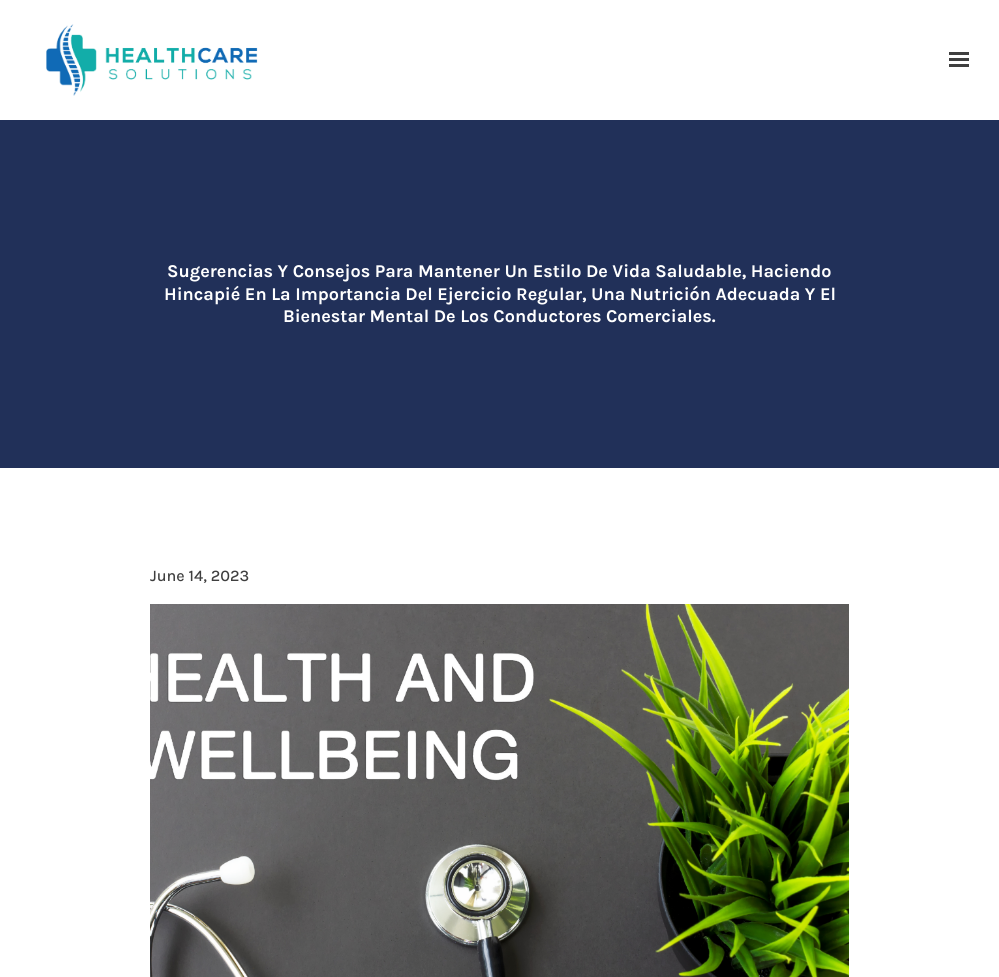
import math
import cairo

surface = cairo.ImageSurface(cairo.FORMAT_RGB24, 999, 977)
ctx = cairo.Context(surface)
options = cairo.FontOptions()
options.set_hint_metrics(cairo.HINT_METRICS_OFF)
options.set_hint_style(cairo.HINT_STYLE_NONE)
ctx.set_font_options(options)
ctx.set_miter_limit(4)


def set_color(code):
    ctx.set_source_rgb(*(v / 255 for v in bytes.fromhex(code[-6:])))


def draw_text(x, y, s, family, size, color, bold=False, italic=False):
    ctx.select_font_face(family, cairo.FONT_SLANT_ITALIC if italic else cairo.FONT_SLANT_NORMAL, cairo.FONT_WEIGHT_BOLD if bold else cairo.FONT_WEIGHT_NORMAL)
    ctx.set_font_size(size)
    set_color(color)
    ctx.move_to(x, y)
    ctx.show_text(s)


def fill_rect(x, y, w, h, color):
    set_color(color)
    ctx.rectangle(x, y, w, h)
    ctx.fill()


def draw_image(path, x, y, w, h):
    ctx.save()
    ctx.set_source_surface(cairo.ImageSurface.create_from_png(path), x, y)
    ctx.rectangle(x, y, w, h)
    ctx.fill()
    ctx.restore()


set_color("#ffffff")
ctx.paint()
draw_image("assets/img1.png", 46, 24, 212, 72)
fill_rect(949, 58, 20, 3, "#3f3f3f")
fill_rect(949, 52, 20, 3, "#3f3f3f")
fill_rect(949, 64, 20, 3, "#3f3f3f")
fill_rect(0, 120, 999, 348, "#213059")
draw_text(167, 277, "Sugerencias Y Consejos Para Mantener Un Estilo De Vida Saludable, Haciendo", "Karla", 18, "#ffffff", bold=True)
draw_text(164, 300, "Hincapié En La Importancia Del Ejercicio Regular, Una Nutrición Adecuada Y El", "Karla", 18, "#ffffff", bold=True)
draw_text(283, 322, "Bienestar Mental De Los Conductores Comerciales.", "Karla", 18, "#ffffff", bold=True)
draw_text(150, 581, "June 14, 2023", "Karla Medium", 16, "#3f3f3f")
draw_image("assets/img2.png", 150, 604, 699, 373)
surface.write_to_png("output.png")
